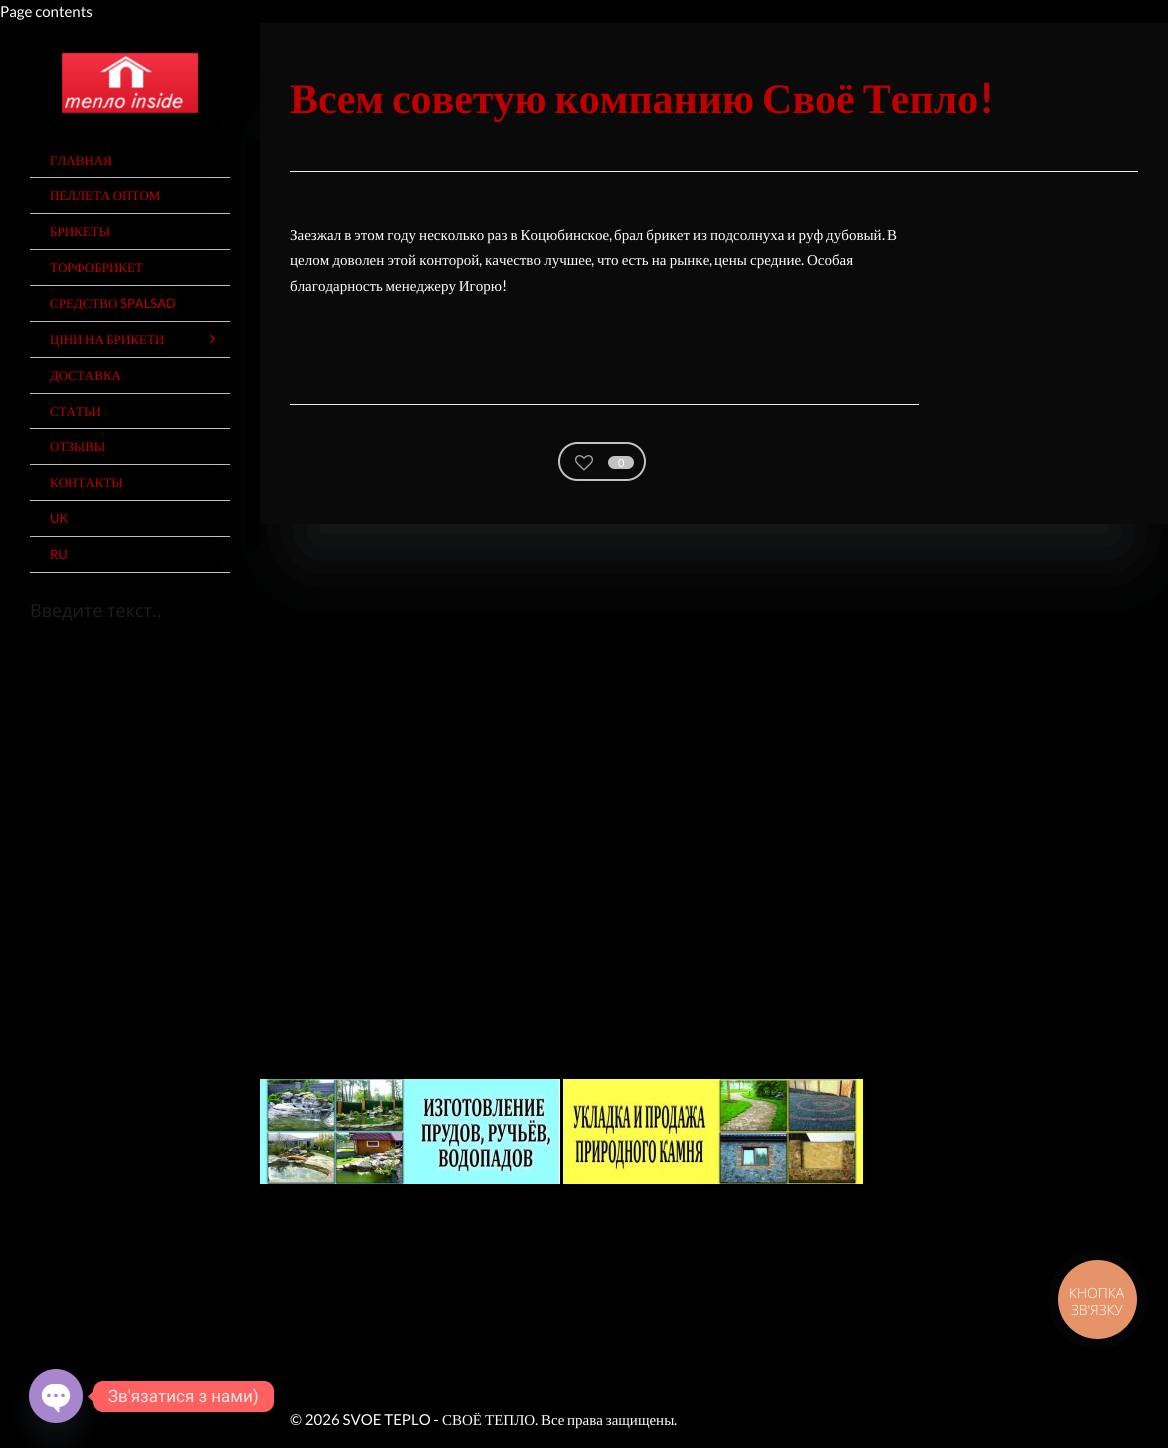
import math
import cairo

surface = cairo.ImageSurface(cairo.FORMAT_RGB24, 1168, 1448)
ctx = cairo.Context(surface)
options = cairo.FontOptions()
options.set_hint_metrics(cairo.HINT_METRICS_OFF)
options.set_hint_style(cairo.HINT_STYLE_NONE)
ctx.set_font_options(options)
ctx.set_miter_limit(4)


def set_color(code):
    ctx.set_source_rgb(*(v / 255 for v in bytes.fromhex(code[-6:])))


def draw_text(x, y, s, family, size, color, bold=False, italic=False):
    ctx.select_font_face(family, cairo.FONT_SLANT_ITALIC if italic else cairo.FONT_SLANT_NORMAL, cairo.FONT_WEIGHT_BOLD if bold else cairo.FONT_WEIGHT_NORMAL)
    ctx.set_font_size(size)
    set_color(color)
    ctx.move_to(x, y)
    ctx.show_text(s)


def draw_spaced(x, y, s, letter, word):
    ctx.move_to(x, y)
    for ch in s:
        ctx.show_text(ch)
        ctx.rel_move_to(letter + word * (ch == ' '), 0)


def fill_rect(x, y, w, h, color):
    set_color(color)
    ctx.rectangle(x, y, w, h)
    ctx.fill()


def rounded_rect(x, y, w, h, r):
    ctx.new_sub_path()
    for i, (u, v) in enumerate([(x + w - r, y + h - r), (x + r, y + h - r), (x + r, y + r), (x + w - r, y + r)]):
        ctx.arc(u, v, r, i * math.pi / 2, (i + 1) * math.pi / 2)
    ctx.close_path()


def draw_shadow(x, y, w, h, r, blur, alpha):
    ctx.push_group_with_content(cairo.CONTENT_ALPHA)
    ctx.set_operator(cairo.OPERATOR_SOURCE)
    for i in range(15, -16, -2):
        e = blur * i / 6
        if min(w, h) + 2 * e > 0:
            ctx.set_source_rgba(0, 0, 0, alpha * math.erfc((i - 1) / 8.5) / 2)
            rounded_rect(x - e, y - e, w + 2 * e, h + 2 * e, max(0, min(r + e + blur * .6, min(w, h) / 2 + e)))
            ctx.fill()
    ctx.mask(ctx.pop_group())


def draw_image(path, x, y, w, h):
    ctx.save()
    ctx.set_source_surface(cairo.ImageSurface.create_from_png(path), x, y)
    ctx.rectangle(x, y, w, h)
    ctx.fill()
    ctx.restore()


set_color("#000000")
ctx.paint()
draw_text(0, 17, "Page contents", "Lato", 15, "#ffffff")
set_color("#1a1c1d")
draw_shadow(300, 133, 828, 421, 0, 40, 1)
fill_rect(246, 141, 14, 405, "#000000")
draw_image("assets/img1.png", 61, 52, 138, 61)
fill_rect(30, 177, 200, 1, "#bfbfbf")
draw_text(50, 165, "ГЛАВНАЯ", "Liberation Serif", 13, "#bf0000")
fill_rect(30, 213, 200, 1, "#bfbfbf")
set_color("#bf0000")
draw_spaced(50, 200, "ПЕЛЛЕТА ОПТОМ", 0, -0.75)
fill_rect(30, 249, 200, 1, "#bfbfbf")
draw_text(50, 236, "БРИКЕТЫ", "Liberation Serif", 13, "#bf0000")
fill_rect(30, 285, 200, 1, "#bfbfbf")
draw_text(50, 272, "ТОРФОБРИКЕТ", "Liberation Serif", 13, "#bf0000")
fill_rect(30, 321, 200, 1, "#bfbfbf")
draw_text(50, 308, "СРЕДСТВО", "Liberation Serif", 13, "#bf0000")
draw_text(120, 308, "SPALSAD", "Lato", 13, "#bf0000")
fill_rect(30, 357, 200, 1, "#bfbfbf")
ctx.select_font_face("Liberation Serif")
set_color("#bf0000")
draw_spaced(50, 344, "ЦІНИ НА БРИКЕТИ", 0, -0.75)
draw_image("assets/img2.png", 210, 334, 5, 10)
fill_rect(30, 393, 200, 1, "#bfbfbf")
draw_text(50, 380, "ДОСТАВКА", "Liberation Serif", 13, "#bf0000")
fill_rect(30, 428, 200, 1, "#bfbfbf")
draw_text(50, 416, "СТАТЬИ", "Liberation Serif", 13, "#bf0000")
fill_rect(30, 464, 200, 1, "#bfbfbf")
draw_text(50, 451, "ОТЗЫВЫ", "Liberation Serif", 13, "#bf0000")
fill_rect(30, 500, 200, 1, "#bfbfbf")
draw_text(50, 487, "КОНТАКТЫ", "Liberation Serif", 13, "#bf0000")
fill_rect(30, 536, 200, 1, "#bfbfbf")
draw_text(50, 523, "UK", "Lato", 13, "#bf0000")
fill_rect(30, 572, 200, 1, "#bfbfbf")
draw_text(50, 559, "RU", "Lato", 13, "#bf0000")
draw_text(30, 617, "Введите текст..", "Open Sans", 18, "#1b1d1f")
fill_rect(260, 23, 908, 501, "#0a0a0a")
fill_rect(290, 171, 848, 1, "#ededed")
ctx.select_font_face("Liberation Serif", cairo.FONT_SLANT_NORMAL, cairo.FONT_WEIGHT_BOLD)
ctx.set_font_size(42)
set_color("#bf0000")
draw_spaced(290, 113, "Всем советую компанию Своё Тепло", 0, -2.5)
draw_text(979, 113, "!", "Lato", 42, "#bf0000", bold=True)
ctx.select_font_face("Liberation Serif")
ctx.set_font_size(15)
set_color("#ffffff")
draw_spaced(290, 240, "Заезжал в этом году несколько раз в Коцюбинское", 0, -0.75)
draw_text(609, 240, ",", "Lato", 15, "#ffffff")
ctx.select_font_face("Liberation Serif")
draw_spaced(614, 240, "брал брикет из подсолнуха и руф дубовый", 0, -0.75)
draw_text(882, 240, ".", "Lato", 15, "#ffffff")
draw_text(887, 240, "В", "Liberation Serif", 15, "#ffffff")
draw_spaced(290, 265, "целом доволен этой конторой", 0, -0.5)
draw_text(479, 265, ",", "Lato", 15, "#ffffff")
ctx.select_font_face("Liberation Serif")
draw_spaced(485, 265, "качество лучшее", 0, -0.5)
draw_text(591, 265, ",", "Lato", 15, "#ffffff")
ctx.select_font_face("Liberation Serif")
draw_spaced(597, 265, "что есть на рынке", 0, -0.5)
draw_text(709, 265, ",", "Lato", 15, "#ffffff")
ctx.select_font_face("Liberation Serif")
draw_spaced(714, 265, "цены средние", 0, -0.5)
draw_text(801, 265, ".", "Lato", 15, "#ffffff")
draw_text(807, 265, "Особая", "Liberation Serif", 15, "#ffffff")
draw_spaced(290, 291, "благодарность менеджеру Игорю", 0, -1)
draw_text(502, 291, "!", "Lato", 15, "#ffffff")
fill_rect(290, 404, 629, 1, "#ededed")
rounded_rect(559, 443, 86, 37, 18.5)
set_color("#c2c2c2")
ctx.stroke()
draw_image("assets/img3.png", 575, 455, 18, 16)
rounded_rect(608, 456, 26, 13, 6.5)
ctx.fill()
draw_text(618, 467, "0", "Lato", 11, "#ffffff")
draw_image("assets/img4.png", 260, 1079, 300, 105)
draw_image("assets/img5.png", 563, 1079, 300, 105)
draw_text(290, 1425, "© 2026 SVOE TEPLO -", "Lato", 15, "#ffffff")
draw_text(442, 1425, "СВОЁ", "Liberation Serif", 15, "#ffffff")
draw_text(485, 1425, "ТЕПЛО", "Liberation Serif", 15, "#ffffff")
draw_text(535, 1425, ".", "Lato", 15, "#ffffff")
ctx.select_font_face("Liberation Serif")
draw_spaced(541, 1425, "Все права защищены", 0, -1)
draw_text(674, 1425, ".", "Lato", 15, "#ffffff")
set_color("#030406")
ctx.new_path()
ctx.arc(1097.5, 1299.5, 49.5, 0, 2 * math.pi)
ctx.fill()
set_color("#e6936a")
ctx.arc(1097.5, 1299.5, 39.5, 0, 2 * math.pi)
ctx.fill()
draw_text(1069, 1298, "КНОПКА", "Open Sans Light", 14, "#ffffff")
draw_text(1071, 1315, "ЗВ'ЯЗКУ", "Open Sans Light", 14, "#ffffff")
set_color("#ff6060")
rounded_rect(93, 1381, 181, 31, 10)
ctx.fill()
ctx.new_path()
ctx.move_to(93, 1391.5)
ctx.line_to(93, 1401.5)
ctx.line_to(88, 1396.5)
ctx.close_path()
ctx.fill()
set_color("#49687e")
draw_shadow(29, 1385, 54, 54, 27, 12, 0.16)
draw_image("assets/img6.png", 29, 1369, 54, 54)
draw_text(108, 1402, "Зв'язатися з нами)", "Roboto", 17, "#e6e6e6")
surface.write_to_png("output.png")
